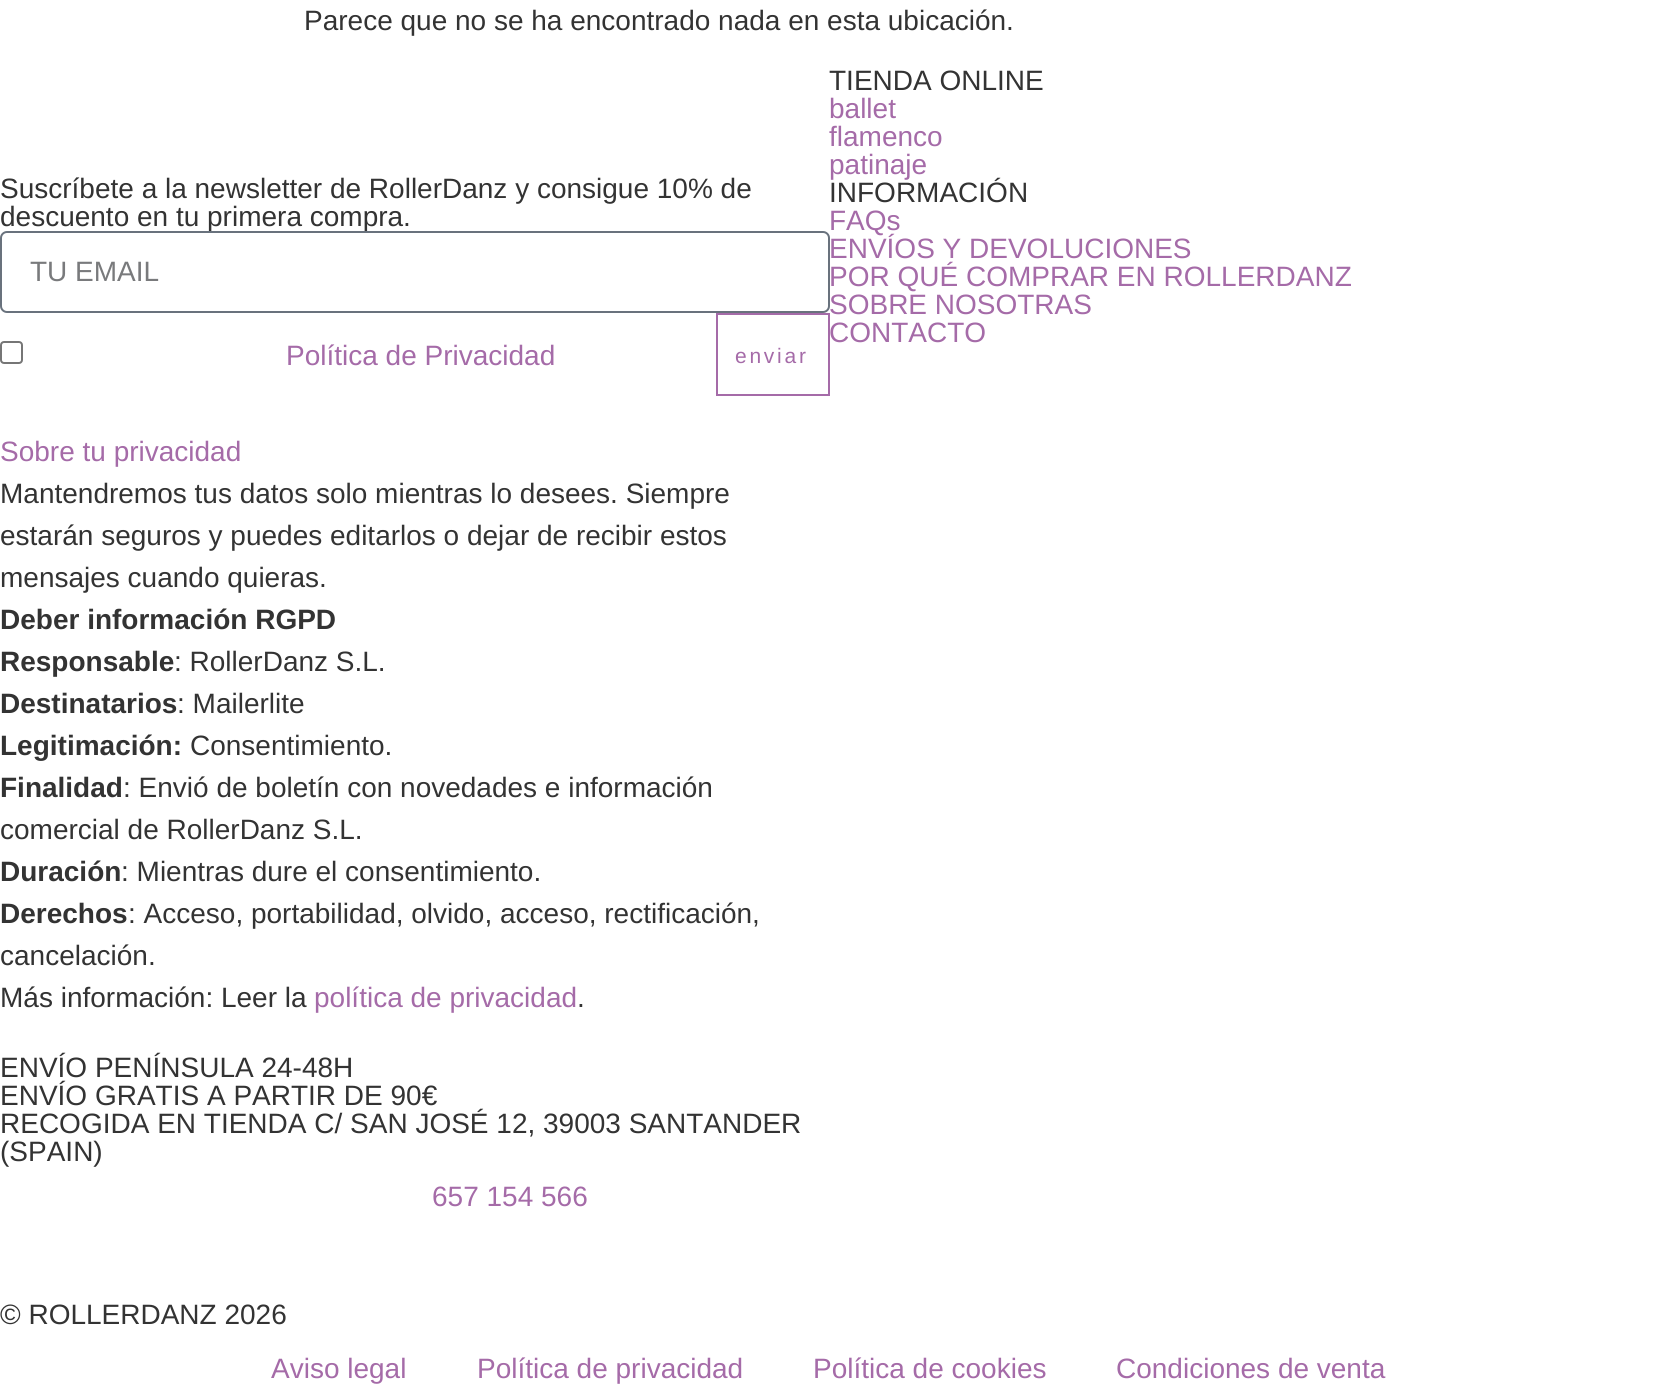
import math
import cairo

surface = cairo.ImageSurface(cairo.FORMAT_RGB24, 1656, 1386)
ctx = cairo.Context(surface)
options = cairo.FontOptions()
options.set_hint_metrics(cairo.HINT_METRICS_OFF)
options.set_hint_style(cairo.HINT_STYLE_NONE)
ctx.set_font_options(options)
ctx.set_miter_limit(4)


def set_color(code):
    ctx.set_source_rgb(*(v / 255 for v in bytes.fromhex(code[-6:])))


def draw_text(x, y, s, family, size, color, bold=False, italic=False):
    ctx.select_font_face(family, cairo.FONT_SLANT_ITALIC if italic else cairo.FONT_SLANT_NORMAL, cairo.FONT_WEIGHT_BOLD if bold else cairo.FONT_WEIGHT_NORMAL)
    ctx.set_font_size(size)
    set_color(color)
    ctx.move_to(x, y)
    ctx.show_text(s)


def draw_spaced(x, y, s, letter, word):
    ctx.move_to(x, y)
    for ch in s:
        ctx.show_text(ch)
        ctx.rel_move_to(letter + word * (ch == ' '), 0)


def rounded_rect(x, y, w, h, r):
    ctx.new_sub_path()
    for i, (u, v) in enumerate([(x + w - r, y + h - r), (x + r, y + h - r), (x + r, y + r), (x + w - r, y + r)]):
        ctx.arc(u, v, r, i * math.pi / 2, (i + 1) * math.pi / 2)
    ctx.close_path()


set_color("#ffffff")
ctx.paint()
draw_text(304, 30, "Parece que no se ha encontrado nada en esta ubicación.", "Liberation Sans", 28, "#333333")
draw_text(0, 198, "Suscríbete a la newsletter de RollerDanz y consigue 10% de", "Liberation Sans", 28, "#333333")
draw_text(0, 226, "descuento en tu primera compra.", "Liberation Sans", 28, "#333333")
set_color("#ffffff")
rounded_rect(1, 232, 828, 80, 6)
ctx.fill_preserve()
set_color("#69727d")
ctx.stroke()
draw_text(30, 281, "TU EMAIL", "Liberation Sans", 28, "#797a7c")
rounded_rect(1, 342, 21, 21, 3)
set_color("#767676")
ctx.stroke()
draw_text(286, 365, "Política de Privacidad", "Liberation Sans", 28, "#a56ba8")
ctx.rectangle(717, 314, 112, 81)
ctx.stroke()
ctx.set_font_size(21)
draw_spaced(735, 363, "enviar", 2.75, 0)
draw_text(0, 461, "Sobre tu privacidad", "Liberation Sans", 28, "#a56ba8")
draw_text(0, 503, "Mantendremos tus datos solo mientras lo desees. Siempre", "Liberation Sans", 28, "#333333")
draw_text(0, 545, "estarán seguros y puedes editarlos o dejar de recibir estos", "Liberation Sans", 28, "#333333")
draw_text(0, 587, "mensajes cuando quieras.", "Liberation Sans", 28, "#333333")
draw_text(0, 629, "Deber información RGPD", "Liberation Sans", 28, "#333333", bold=True)
draw_text(0, 671, "Responsable", "Liberation Sans", 28, "#333333", bold=True)
draw_text(174, 671, ": RollerDanz S.L.", "Liberation Sans", 28, "#333333")
draw_text(0, 713, "Destinatarios", "Liberation Sans", 28, "#333333", bold=True)
draw_text(177, 713, ": Mailerlite", "Liberation Sans", 28, "#333333")
draw_text(0, 755, "Legitimación:", "Liberation Sans", 28, "#333333", bold=True)
draw_text(190, 755, "Consentimiento.", "Liberation Sans", 28, "#333333")
draw_text(0, 797, "Finalidad", "Liberation Sans", 28, "#333333", bold=True)
draw_text(123, 797, ": Envió de boletín con novedades e información", "Liberation Sans", 28, "#333333")
draw_text(0, 839, "comercial de RollerDanz S.L.", "Liberation Sans", 28, "#333333")
draw_text(0, 881, "Duración", "Liberation Sans", 28, "#333333", bold=True)
draw_text(121, 881, ": Mientras dure el consentimiento.", "Liberation Sans", 28, "#333333")
draw_text(0, 923, "Derechos", "Liberation Sans", 28, "#333333", bold=True)
draw_text(128, 923, ": Acceso, portabilidad, olvido, acceso, rectificación,", "Liberation Sans", 28, "#333333")
draw_text(0, 965, "cancelación.", "Liberation Sans", 28, "#333333")
draw_text(0, 1007, "Más información: Leer la", "Liberation Sans", 28, "#333333")
draw_text(314, 1007, "política de privacidad", "Liberation Sans", 28, "#a56ba8")
draw_text(577, 1007, ".", "Liberation Sans", 28, "#333333")
draw_text(0, 1077, "ENVÍO PENÍNSULA 24-48H", "Liberation Sans", 28, "#333333")
draw_text(0, 1105, "ENVÍO GRATIS A PARTIR DE 90€", "Liberation Sans", 28, "#333333")
draw_text(0, 1133, "RECOGIDA EN TIENDA C/ SAN JOSÉ 12, 39003 SANTANDER", "Liberation Sans", 28, "#333333")
draw_text(0, 1161, "(SPAIN)", "Liberation Sans", 28, "#333333")
draw_text(432, 1206, "657 154 566", "Liberation Sans", 28, "#a56ba8")
draw_text(829, 90, "TIENDA ONLINE", "Liberation Sans", 28, "#333333")
draw_text(829, 118, "ballet", "Liberation Sans", 28, "#a56ba8")
draw_text(829, 146, "flamenco", "Liberation Sans", 28, "#a56ba8")
draw_text(829, 174, "patinaje", "Liberation Sans", 28, "#a56ba8")
draw_text(829, 202, "INFORMACIÓN", "Liberation Sans", 28, "#333333")
draw_text(829, 230, "FAQs", "Liberation Sans", 28, "#a56ba8")
draw_text(829, 258, "ENVÍOS Y DEVOLUCIONES", "Liberation Sans", 28, "#a56ba8")
draw_text(829, 286, "POR QUÉ COMPRAR EN ROLLERDANZ", "Liberation Sans", 28, "#a56ba8")
draw_text(829, 314, "SOBRE NOSOTRAS", "Liberation Sans", 28, "#a56ba8")
draw_text(829, 342, "CONTACTO", "Liberation Sans", 28, "#a56ba8")
draw_text(0, 1324, "© ROLLERDANZ 2026", "Liberation Sans", 28, "#333333")
draw_text(271, 1378, "Aviso legal", "Liberation Sans", 28, "#a56ba8")
draw_text(477, 1378, "Política de privacidad", "Liberation Sans", 28, "#a56ba8")
draw_text(813, 1378, "Política de cookies", "Liberation Sans", 28, "#a56ba8")
draw_text(1116, 1378, "Condiciones de venta", "Liberation Sans", 28, "#a56ba8")
surface.write_to_png("output.png")
